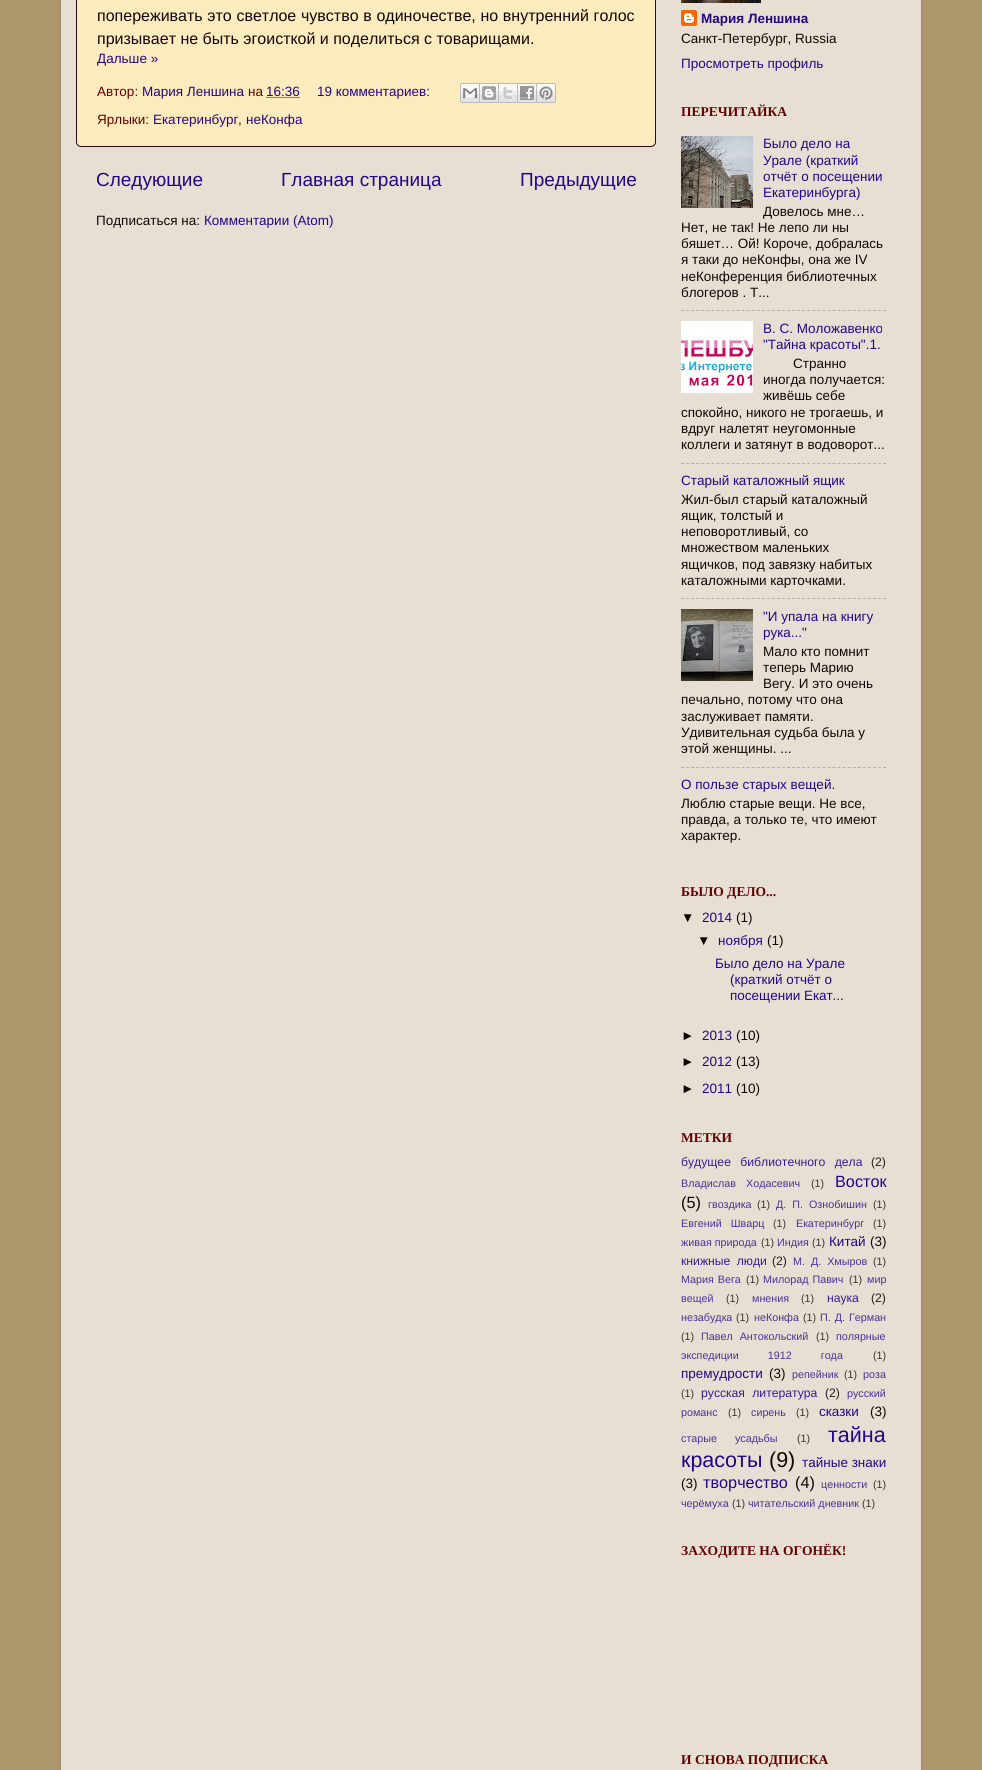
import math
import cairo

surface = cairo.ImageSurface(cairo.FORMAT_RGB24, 982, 1770)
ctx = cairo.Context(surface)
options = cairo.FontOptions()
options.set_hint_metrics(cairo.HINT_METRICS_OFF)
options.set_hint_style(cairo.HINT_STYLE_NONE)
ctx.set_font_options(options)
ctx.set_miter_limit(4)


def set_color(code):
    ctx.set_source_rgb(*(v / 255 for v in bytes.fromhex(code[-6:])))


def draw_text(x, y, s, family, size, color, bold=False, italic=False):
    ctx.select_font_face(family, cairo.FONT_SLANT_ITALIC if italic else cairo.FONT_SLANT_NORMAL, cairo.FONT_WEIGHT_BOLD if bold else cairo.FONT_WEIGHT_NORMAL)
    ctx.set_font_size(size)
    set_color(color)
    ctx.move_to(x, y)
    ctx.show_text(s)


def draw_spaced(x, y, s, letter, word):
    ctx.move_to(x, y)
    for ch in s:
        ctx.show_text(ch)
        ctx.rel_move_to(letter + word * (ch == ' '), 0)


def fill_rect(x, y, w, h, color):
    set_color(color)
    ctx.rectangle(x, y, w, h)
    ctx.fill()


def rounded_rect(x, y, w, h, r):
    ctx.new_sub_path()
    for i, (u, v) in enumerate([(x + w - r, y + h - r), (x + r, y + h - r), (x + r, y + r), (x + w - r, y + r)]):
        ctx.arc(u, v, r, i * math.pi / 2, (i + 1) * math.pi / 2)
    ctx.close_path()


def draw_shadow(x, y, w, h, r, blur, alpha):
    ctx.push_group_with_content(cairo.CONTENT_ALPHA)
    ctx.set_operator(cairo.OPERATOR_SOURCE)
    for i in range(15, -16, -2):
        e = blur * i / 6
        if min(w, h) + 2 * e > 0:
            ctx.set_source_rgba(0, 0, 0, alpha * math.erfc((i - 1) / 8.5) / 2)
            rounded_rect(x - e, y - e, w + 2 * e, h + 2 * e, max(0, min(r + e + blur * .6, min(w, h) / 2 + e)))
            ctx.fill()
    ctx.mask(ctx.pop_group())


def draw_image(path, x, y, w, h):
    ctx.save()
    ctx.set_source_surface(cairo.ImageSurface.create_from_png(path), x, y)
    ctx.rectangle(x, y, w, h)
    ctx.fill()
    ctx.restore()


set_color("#ad966c")
ctx.paint()
set_color("#000000")
draw_shadow(61, -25, 860, 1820, 20, 1.5, 0.15)
fill_rect(61, 0, 860, 1770, "#e7dfd4")
set_color("#fcecbd")
rounded_rect(76.5, -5.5, 579, 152, 4.5)
ctx.fill_preserve()
set_color("#280909")
ctx.set_line_width(1)
ctx.stroke()
ctx.select_font_face("Liberation Sans")
ctx.set_font_size(16)
set_color("#110606")
draw_spaced(97, 21, "попереживать это светлое чувство в одиночестве, но внутренний голос", 0, 0.25)
draw_text(97, 44, "призывает не быть эгоисткой и поделиться с товарищами.", "Liberation Sans", 16, "#110606")
draw_text(97, 63, "Дальше »", "Liberation Sans", 13.5, "#240588")
draw_text(97, 96, "Автор:", "Liberation Sans", 13.5, "#660000")
draw_text(142, 96, "Мария Леншина", "Liberation Sans", 13.5, "#240588")
draw_text(248, 96, "на", "Liberation Sans", 13.5, "#660000")
draw_text(266, 96, "16:36", "Liberation Sans", 13.5, "#240588")
ctx.new_path()
ctx.move_to(266.5, 97.5)
ctx.line_to(300, 97.5)
ctx.set_dash([1, 1])
ctx.stroke()
draw_text(317, 96, "19 комментариев:", "Liberation Sans", 13.5, "#240588")
draw_image("assets/img1.png", 460, 83, 20, 20)
draw_image("assets/img2.png", 480, 83, 19, 20)
draw_image("assets/img3.png", 499, 83, 19, 20)
draw_image("assets/img4.png", 518, 83, 19, 20)
draw_image("assets/img5.png", 537, 83, 19, 20)
draw_text(97, 124, "Ярлыки:", "Liberation Sans", 13.5, "#660000")
draw_text(153, 124, "Екатеринбург", "Liberation Sans", 13.5, "#240588")
draw_text(238, 124, ",", "Liberation Sans", 13.5, "#660000")
draw_text(246, 124, "неКонфа", "Liberation Sans", 13.5, "#240588")
draw_text(96, 186, "Следующие", "Liberation Sans", 19, "#240588")
draw_text(281, 186, "Главная страница", "Liberation Sans", 19, "#240588")
draw_text(520, 186, "Предыдущие", "Liberation Sans", 19, "#240588")
draw_text(96, 225, "Подписаться на:", "Liberation Sans", 13.5, "#110606")
draw_text(204, 225, "Комментарии (Atom)", "Liberation Sans", 13.5, "#240588")
draw_image("assets/img6.png", 681, 0, 80, 3)
draw_image("assets/img7.png", 681, 10, 16, 16)
draw_text(701, 23, "Мария Леншина", "Liberation Sans", 13.5, "#240588", bold=True)
draw_text(681, 43, "Санкт-Петербург, Russia", "Liberation Sans", 13.5, "#110606")
draw_text(681, 68, "Просмотреть профиль", "Liberation Sans", 13.5, "#240588")
draw_text(681, 116, "ПЕРЕЧИТАЙКА", "Liberation Serif", 13.5, "#660000", bold=True)
draw_image("assets/img8.png", 681, 136, 72, 72)
draw_text(763, 148, "Было дело на", "Liberation Sans", 13.5, "#240588")
draw_text(763, 165, "Урале (краткий", "Liberation Sans", 13.5, "#240588")
draw_text(763, 181, "отчёт о посещении", "Liberation Sans", 13.5, "#240588")
draw_text(763, 197, "Екатеринбурга)", "Liberation Sans", 13.5, "#240588")
draw_text(763, 216, "Довелось мне…", "Liberation Sans", 13.5, "#110606")
draw_text(681, 232, "Нет, не так! Не лепо ли ны", "Liberation Sans", 13.5, "#110606")
draw_text(681, 248, "бяшет… Ой! Короче, добралась", "Liberation Sans", 13.5, "#110606")
draw_text(681, 264, "я таки до неКонфы, она же IV", "Liberation Sans", 13.5, "#110606")
draw_text(681, 281, "неКонференция библиотечных", "Liberation Sans", 13.5, "#110606")
draw_text(681, 297, "блогеров . Т...", "Liberation Sans", 13.5, "#110606")
ctx.new_path()
ctx.move_to(681, 310.5)
ctx.line_to(886, 310.5)
set_color("#b4b0aa")
ctx.set_dash([3, 2.05])
ctx.stroke()
draw_image("assets/img9.png", 681, 321, 72, 72)
draw_text(763, 333, "В. С. Моложавенко", "Liberation Sans", 13.5, "#240588")
draw_text(763, 349, "\"Тайна красоты\".1.", "Liberation Sans", 13.5, "#240588")
draw_text(793, 368, "Странно", "Liberation Sans", 13.5, "#110606")
draw_text(763, 384, "иногда получается:", "Liberation Sans", 13.5, "#110606")
draw_text(763, 400, "живёшь себе", "Liberation Sans", 13.5, "#110606")
draw_text(681, 417, "спокойно, никого не трогаешь, и", "Liberation Sans", 13.5, "#110606")
draw_text(681, 433, "вдруг налетят неугомонные", "Liberation Sans", 13.5, "#110606")
draw_text(681, 449, "коллеги и затянут в водоворот...", "Liberation Sans", 13.5, "#110606")
ctx.new_path()
ctx.move_to(681, 463.5)
ctx.line_to(886, 463.5)
set_color("#b4b0aa")
ctx.stroke()
draw_text(681, 485, "Старый каталожный ящик", "Liberation Sans", 13.5, "#240588")
draw_text(681, 504, "Жил-был старый каталожный", "Liberation Sans", 13.5, "#110606")
draw_text(681, 520, "ящик, толстый и", "Liberation Sans", 13.5, "#110606")
draw_text(681, 536, "неповоротливый, со", "Liberation Sans", 13.5, "#110606")
draw_text(681, 552, "множеством маленьких", "Liberation Sans", 13.5, "#110606")
draw_text(681, 569, "ящичков, под завязку набитых", "Liberation Sans", 13.5, "#110606")
draw_text(681, 585, "каталожными карточками.", "Liberation Sans", 13.5, "#110606")
ctx.new_path()
ctx.move_to(681, 598.5)
ctx.line_to(886, 598.5)
set_color("#b4b0aa")
ctx.stroke()
draw_image("assets/img10.png", 681, 609, 72, 72)
draw_text(763, 621, "\"И упала на книгу", "Liberation Sans", 13.5, "#240588")
draw_text(763, 637, "рука...\"", "Liberation Sans", 13.5, "#240588")
draw_text(763, 656, "Мало кто помнит", "Liberation Sans", 13.5, "#110606")
draw_text(763, 672, "теперь Марию", "Liberation Sans", 13.5, "#110606")
draw_text(763, 688, "Вегу. И это очень", "Liberation Sans", 13.5, "#110606")
draw_text(681, 704, "печально, потому что она", "Liberation Sans", 13.5, "#110606")
draw_text(681, 721, "заслуживает памяти.", "Liberation Sans", 13.5, "#110606")
draw_text(681, 737, "Удивительная судьба была у", "Liberation Sans", 13.5, "#110606")
draw_text(681, 753, "этой женщины. ...", "Liberation Sans", 13.5, "#110606")
ctx.new_path()
ctx.move_to(681, 767.5)
ctx.line_to(886, 767.5)
set_color("#b4b0aa")
ctx.stroke()
draw_text(681, 789, "О пользе старых вещей.", "Liberation Sans", 13.5, "#240588")
draw_text(681, 808, "Люблю старые вещи. Не все,", "Liberation Sans", 13.5, "#110606")
draw_text(681, 824, "правда, а только те, что имеют", "Liberation Sans", 13.5, "#110606")
draw_text(681, 840, "характер.", "Liberation Sans", 13.5, "#110606")
draw_text(681, 896, "БЫЛО ДЕЛО...", "Liberation Serif", 13.5, "#660000", bold=True)
draw_text(681, 922, "▼", "Liberation Sans", 13.5, "#110606")
draw_text(702, 922, "2014", "Liberation Sans", 13.5, "#240588")
draw_text(736, 922, "(1)", "Liberation Sans", 13.5, "#110606")
draw_text(697, 945, "▼", "Liberation Sans", 13.5, "#110606")
draw_text(718, 945, "ноября", "Liberation Sans", 13.5, "#240588")
draw_text(767, 945, "(1)", "Liberation Sans", 13.5, "#110606")
draw_text(715, 968, "Было дело на Урале", "Liberation Sans", 13.5, "#240588")
draw_text(730, 984, "(краткий отчёт о", "Liberation Sans", 13.5, "#240588")
draw_text(730, 1000, "посещении Екат...", "Liberation Sans", 13.5, "#240588")
draw_text(681, 1040, "►", "Liberation Sans", 13.5, "#110606")
draw_text(702, 1040, "2013", "Liberation Sans", 13.5, "#240588")
draw_text(736, 1040, "(10)", "Liberation Sans", 13.5, "#110606")
draw_text(681, 1066, "►", "Liberation Sans", 13.5, "#110606")
draw_text(702, 1066, "2012", "Liberation Sans", 13.5, "#240588")
draw_text(736, 1066, "(13)", "Liberation Sans", 13.5, "#110606")
draw_text(681, 1093, "►", "Liberation Sans", 13.5, "#110606")
draw_text(702, 1093, "2011", "Liberation Sans", 13.5, "#240588")
draw_text(736, 1093, "(10)", "Liberation Sans", 13.5, "#110606")
draw_text(681, 1142, "МЕТКИ", "Liberation Serif", 13.5, "#660000", bold=True)
ctx.select_font_face("Liberation Sans")
ctx.set_font_size(12.2)
set_color("#381b90")
draw_spaced(681, 1166, "будущее библиотечного дела", 0, 6)
draw_text(871, 1166, "(2)", "Liberation Sans", 12.2, "#261c1b")
ctx.set_font_size(10.75)
set_color("#4b3197")
draw_spaced(681, 1187, "Владислав Ходасевич", 0, 7)
draw_text(811, 1187, "(1)", "Liberation Sans", 10.75, "#3c312f")
draw_text(835, 1187, "Восток", "Liberation Sans", 16.25, "#240588")
draw_text(681, 1208, "(5)", "Liberation Sans", 16.25, "#110606")
draw_text(708, 1208, "гвоздика", "Liberation Sans", 10.75, "#4b3197")
draw_text(757, 1208, "(1)", "Liberation Sans", 10.75, "#3c312f")
set_color("#4b3197")
draw_spaced(776, 1208, "Д. П. Ознобишин", 0, 3)
draw_text(873, 1208, "(1)", "Liberation Sans", 10.75, "#3c312f")
set_color("#4b3197")
draw_spaced(681, 1227, "Евгений Шварц", 0, 6)
draw_text(773, 1227, "(1)", "Liberation Sans", 10.75, "#3c312f")
draw_text(796, 1227, "Екатеринбург", "Liberation Sans", 10.75, "#4b3197")
draw_text(873, 1227, "(1)", "Liberation Sans", 10.75, "#3c312f")
draw_text(681, 1246, "живая природа", "Liberation Sans", 10.75, "#4b3197")
draw_text(761, 1246, "(1)", "Liberation Sans", 10.75, "#3c312f")
draw_text(777, 1246, "Индия", "Liberation Sans", 10.75, "#4b3197")
draw_text(812, 1246, "(1)", "Liberation Sans", 10.75, "#3c312f")
draw_text(829, 1246, "Китай", "Liberation Sans", 13.5, "#240588")
draw_text(870, 1246, "(3)", "Liberation Sans", 13.5, "#110606")
ctx.set_font_size(12.2)
set_color("#381b90")
draw_spaced(681, 1265, "книжные люди", 0, 3)
draw_text(772, 1265, "(2)", "Liberation Sans", 12.2, "#261c1b")
ctx.set_font_size(10.75)
set_color("#4b3197")
draw_spaced(793, 1265, "М. Д. Хмыров", 0, 3)
draw_text(873, 1265, "(1)", "Liberation Sans", 10.75, "#3c312f")
set_color("#4b3197")
draw_spaced(681, 1283, "Мария Вега", 0, 1)
draw_text(746, 1283, "(1)", "Liberation Sans", 10.75, "#3c312f")
set_color("#4b3197")
draw_spaced(763, 1283, "Милорад Павич", 0, 1)
draw_text(849, 1283, "(1)", "Liberation Sans", 10.75, "#3c312f")
draw_text(867, 1283, "мир", "Liberation Sans", 10.75, "#4b3197")
draw_text(681, 1302, "вещей", "Liberation Sans", 10.75, "#4b3197")
draw_text(726, 1302, "(1)", "Liberation Sans", 10.75, "#3c312f")
draw_text(752, 1302, "мнения", "Liberation Sans", 10.75, "#4b3197")
draw_text(801, 1302, "(1)", "Liberation Sans", 10.75, "#3c312f")
draw_text(827, 1302, "наука", "Liberation Sans", 12.2, "#381b90")
draw_text(871, 1302, "(2)", "Liberation Sans", 12.2, "#261c1b")
draw_text(681, 1321, "незабудка", "Liberation Sans", 10.75, "#4b3197")
draw_text(736, 1321, "(1)", "Liberation Sans", 10.75, "#3c312f")
draw_text(754, 1321, "неКонфа", "Liberation Sans", 10.75, "#4b3197")
draw_text(803, 1321, "(1)", "Liberation Sans", 10.75, "#3c312f")
set_color("#4b3197")
draw_spaced(820, 1321, "П. Д. Герман", 0, 1)
draw_text(681, 1340, "(1)", "Liberation Sans", 10.75, "#3c312f")
set_color("#4b3197")
draw_spaced(701, 1340, "Павел Антокольский", 0, 4)
draw_text(816, 1340, "(1)", "Liberation Sans", 10.75, "#3c312f")
draw_text(836, 1340, "полярные", "Liberation Sans", 10.75, "#4b3197")
draw_spaced(681, 1359, "экспедиции 1912 года", 0, 26)
draw_text(873, 1359, "(1)", "Liberation Sans", 10.75, "#3c312f")
draw_text(681, 1378, "премудрости", "Liberation Sans", 13.5, "#240588")
draw_text(769, 1378, "(3)", "Liberation Sans", 13.5, "#110606")
draw_text(792, 1378, "репейник", "Liberation Sans", 10.75, "#4b3197")
draw_text(844, 1378, "(1)", "Liberation Sans", 10.75, "#3c312f")
draw_text(863, 1378, "роза", "Liberation Sans", 10.75, "#4b3197")
draw_text(681, 1397, "(1)", "Liberation Sans", 10.75, "#3c312f")
ctx.set_font_size(12.2)
set_color("#381b90")
draw_spaced(701, 1397, "русская литература", 0, 4)
draw_text(825, 1397, "(2)", "Liberation Sans", 12.2, "#261c1b")
draw_text(847, 1397, "русский", "Liberation Sans", 10.75, "#4b3197")
draw_text(681, 1416, "романс", "Liberation Sans", 10.75, "#4b3197")
draw_text(728, 1416, "(1)", "Liberation Sans", 10.75, "#3c312f")
draw_text(751, 1416, "сирень", "Liberation Sans", 10.75, "#4b3197")
draw_text(796, 1416, "(1)", "Liberation Sans", 10.75, "#3c312f")
draw_text(819, 1416, "сказки", "Liberation Sans", 13.5, "#240588")
draw_text(870, 1416, "(3)", "Liberation Sans", 13.5, "#110606")
ctx.set_font_size(10.75)
set_color("#4b3197")
draw_spaced(681, 1442, "старые усадьбы", 0, 15)
draw_text(797, 1442, "(1)", "Liberation Sans", 10.75, "#3c312f")
draw_text(828, 1442, "тайна", "Liberation Sans", 21.5, "#240588")
draw_text(681, 1467, "красоты", "Liberation Sans", 21.5, "#240588")
draw_text(769, 1467, "(9)", "Liberation Sans", 21.5, "#110606")
draw_text(802, 1467, "тайные знаки", "Liberation Sans", 13.5, "#240588")
draw_text(681, 1488, "(3)", "Liberation Sans", 13.5, "#110606")
draw_text(703, 1488, "творчество", "Liberation Sans", 16.25, "#240588")
draw_text(795, 1488, "(4)", "Liberation Sans", 16.25, "#110606")
draw_text(821, 1488, "ценности", "Liberation Sans", 10.75, "#4b3197")
draw_text(873, 1488, "(1)", "Liberation Sans", 10.75, "#3c312f")
draw_text(681, 1507, "черёмуха", "Liberation Sans", 10.75, "#4b3197")
draw_text(732, 1507, "(1)", "Liberation Sans", 10.75, "#3c312f")
draw_text(748, 1507, "читательский дневник", "Liberation Sans", 10.75, "#4b3197")
draw_text(862, 1507, "(1)", "Liberation Sans", 10.75, "#3c312f")
draw_text(681, 1555, "ЗАХОДИТЕ НА ОГОНЁК!", "Liberation Serif", 13.5, "#660000", bold=True)
draw_text(681, 1764, "И СНОВА ПОДПИСКА", "Liberation Serif", 13.5, "#660000", bold=True)
surface.write_to_png("output.png")
